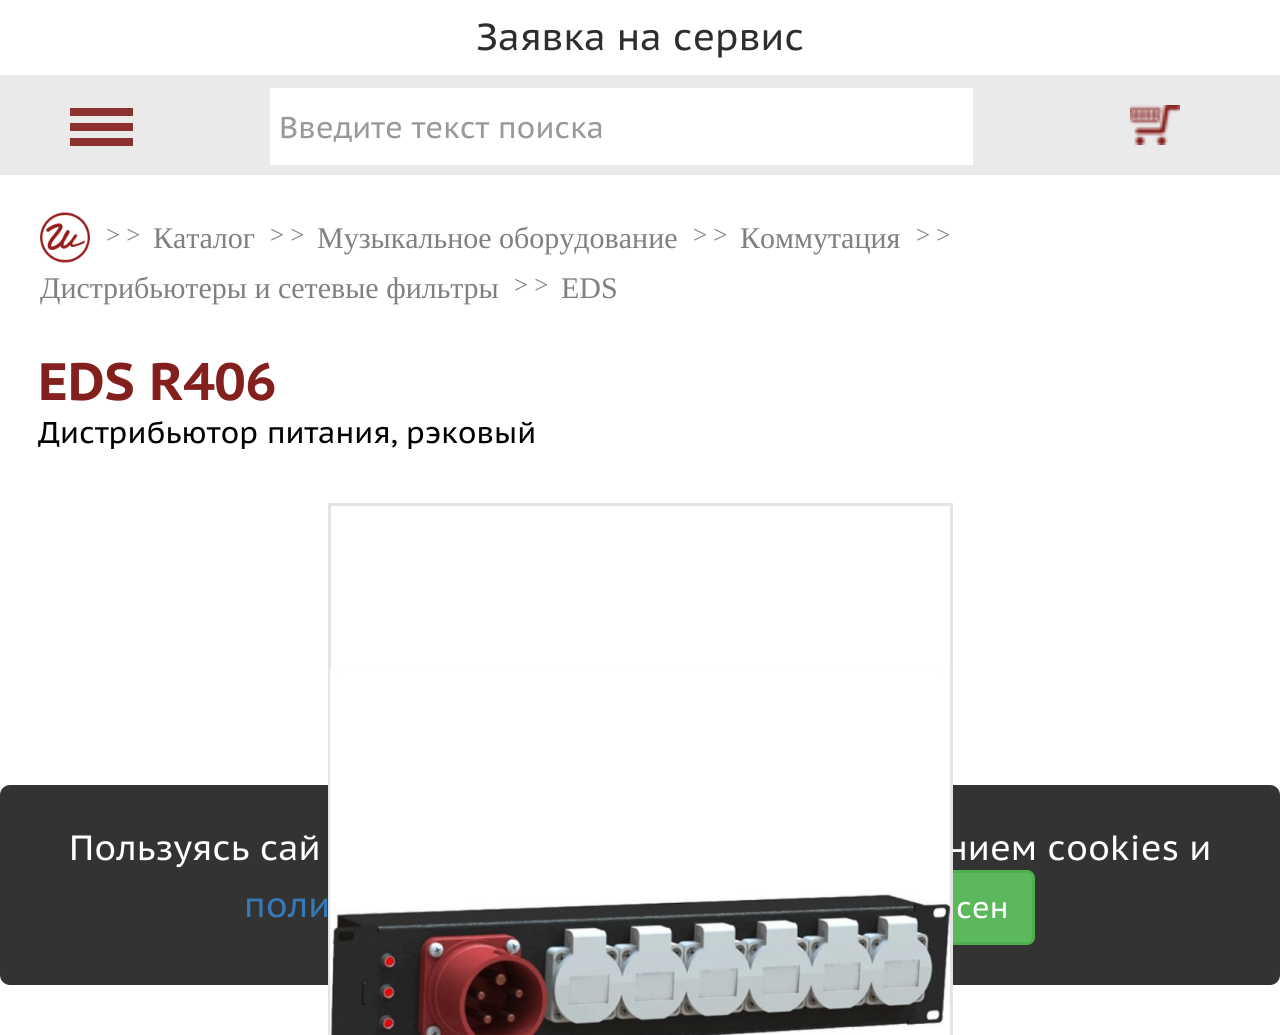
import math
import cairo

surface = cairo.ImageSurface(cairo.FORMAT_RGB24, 1280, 1035)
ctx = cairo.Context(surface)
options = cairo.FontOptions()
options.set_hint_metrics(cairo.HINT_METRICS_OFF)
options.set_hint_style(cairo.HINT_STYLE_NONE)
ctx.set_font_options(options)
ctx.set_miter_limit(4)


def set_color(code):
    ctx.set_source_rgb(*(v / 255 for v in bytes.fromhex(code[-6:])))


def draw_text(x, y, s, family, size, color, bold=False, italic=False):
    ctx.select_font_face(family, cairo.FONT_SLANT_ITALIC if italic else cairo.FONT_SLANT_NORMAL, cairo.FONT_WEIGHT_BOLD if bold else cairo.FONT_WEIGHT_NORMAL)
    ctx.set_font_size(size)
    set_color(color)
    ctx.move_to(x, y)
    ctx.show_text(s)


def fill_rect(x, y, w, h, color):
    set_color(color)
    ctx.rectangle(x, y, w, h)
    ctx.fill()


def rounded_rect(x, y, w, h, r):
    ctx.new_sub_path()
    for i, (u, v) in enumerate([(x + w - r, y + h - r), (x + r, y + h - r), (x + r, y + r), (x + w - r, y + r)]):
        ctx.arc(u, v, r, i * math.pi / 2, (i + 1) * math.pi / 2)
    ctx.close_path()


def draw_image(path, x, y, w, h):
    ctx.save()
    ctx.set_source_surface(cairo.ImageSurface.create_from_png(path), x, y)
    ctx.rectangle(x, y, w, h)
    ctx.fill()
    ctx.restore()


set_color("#ffffff")
ctx.paint()
draw_text(476, 50, "Заявка на сервис", "PT Sans Caption", 37.5, "#2e2e2e")
fill_rect(0, 75, 1280, 100, "#eaeaea")
fill_rect(70, 108, 63, 8, "#8c312e")
fill_rect(70, 123, 63, 8, "#8c312e")
fill_rect(70, 138, 63, 8, "#8c312e")
fill_rect(270, 88, 703, 77, "#ffffff")
draw_text(279, 138, "Введите текст поиска", "PT Sans Caption", 30, "#999999")
draw_image("assets/img1.png", 1130, 105, 50, 40)
draw_image("assets/img2.png", 40, 212, 50, 51)
draw_text(106, 243, "> >", "Liberation Serif", 25, "#808080")
draw_text(153, 248, "Каталог", "Liberation Serif", 30, "#808080")
draw_text(270, 243, "> >", "Liberation Serif", 25, "#808080")
draw_text(317, 248, "Музыкальное оборудование", "Liberation Serif", 30, "#808080")
draw_text(693, 243, "> >", "Liberation Serif", 25, "#808080")
draw_text(740, 248, "Коммутация", "Liberation Serif", 30, "#808080")
draw_text(916, 243, "> >", "Liberation Serif", 25, "#808080")
draw_text(40, 298, "Дистрибьютеры и сетевые фильтры", "Liberation Serif", 30, "#808080")
draw_text(514, 293, "> >", "Liberation Serif", 25, "#808080")
draw_text(561, 298, "EDS", "Liberation Serif", 30, "#808080")
draw_text(38, 400, "EDS R406", "PT Sans Caption", 52.5, "#831f1c", bold=True)
draw_text(38, 443, "Дистрибьютор питания, рэковый", "PT Sans Caption", 30, "#000000")
set_color("#333333")
rounded_rect(0, 785, 1280, 200, 10)
ctx.fill()
draw_text(946, 860, "нием cookies и", "PT Sans Caption", 35, "#ffffff")
set_color("#5cb85c")
rounded_rect(844.5, 871.5, 189, 72, 6.5)
ctx.fill_preserve()
set_color("#4cae4c")
ctx.set_line_width(3)
ctx.stroke()
ctx.rectangle(329.5, 504.5, 622, 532)
set_color("#e4e4e4")
ctx.stroke()
draw_image("assets/img3.png", 330, 668, 620, 367)
draw_text(69, 860, "Пользуясь сай", "PT Sans Caption", 35, "#ffffff")
draw_text(244, 917, "поли", "PT Sans Caption", 35, "#337ab7")
draw_text(956, 918, "сен", "PT Sans Caption", 30, "#ffffff")
surface.write_to_png("output.png")
